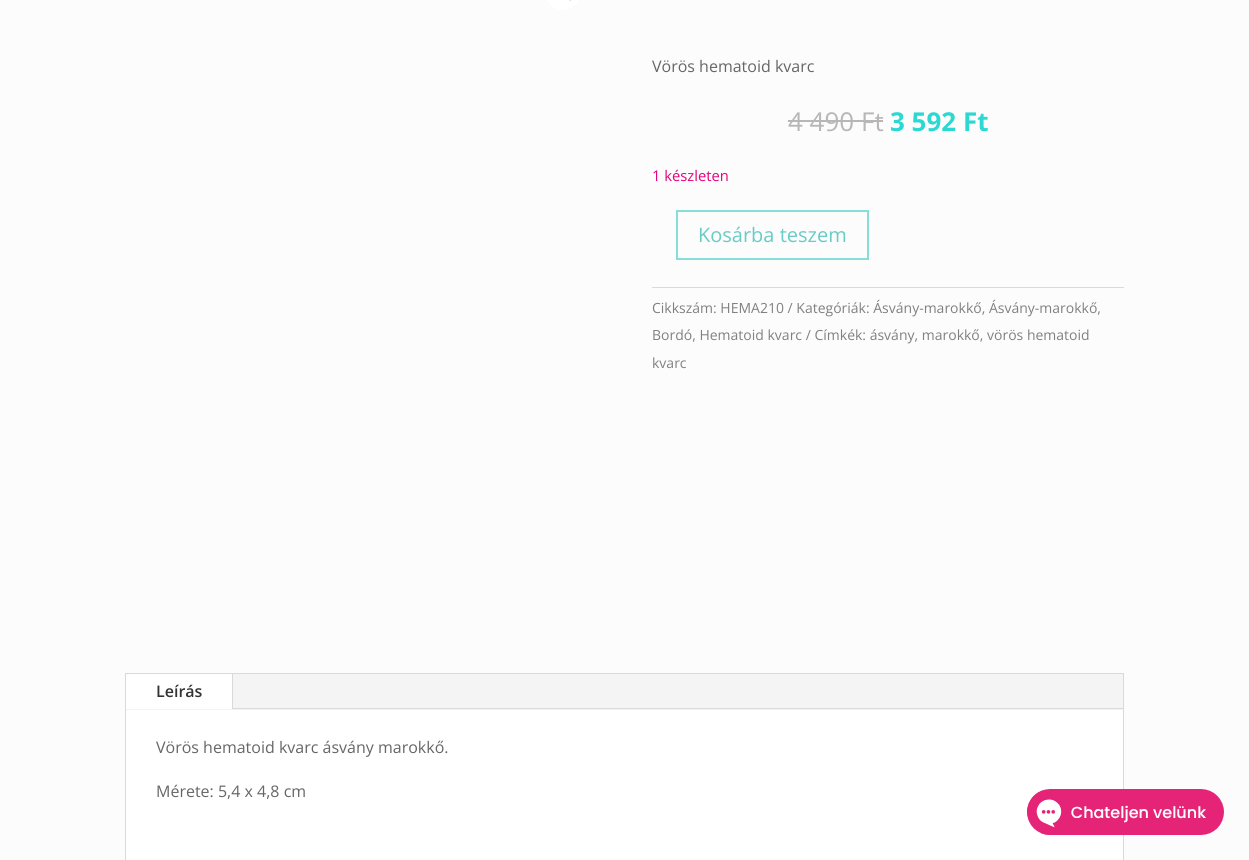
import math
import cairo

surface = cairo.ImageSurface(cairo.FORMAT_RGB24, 1249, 860)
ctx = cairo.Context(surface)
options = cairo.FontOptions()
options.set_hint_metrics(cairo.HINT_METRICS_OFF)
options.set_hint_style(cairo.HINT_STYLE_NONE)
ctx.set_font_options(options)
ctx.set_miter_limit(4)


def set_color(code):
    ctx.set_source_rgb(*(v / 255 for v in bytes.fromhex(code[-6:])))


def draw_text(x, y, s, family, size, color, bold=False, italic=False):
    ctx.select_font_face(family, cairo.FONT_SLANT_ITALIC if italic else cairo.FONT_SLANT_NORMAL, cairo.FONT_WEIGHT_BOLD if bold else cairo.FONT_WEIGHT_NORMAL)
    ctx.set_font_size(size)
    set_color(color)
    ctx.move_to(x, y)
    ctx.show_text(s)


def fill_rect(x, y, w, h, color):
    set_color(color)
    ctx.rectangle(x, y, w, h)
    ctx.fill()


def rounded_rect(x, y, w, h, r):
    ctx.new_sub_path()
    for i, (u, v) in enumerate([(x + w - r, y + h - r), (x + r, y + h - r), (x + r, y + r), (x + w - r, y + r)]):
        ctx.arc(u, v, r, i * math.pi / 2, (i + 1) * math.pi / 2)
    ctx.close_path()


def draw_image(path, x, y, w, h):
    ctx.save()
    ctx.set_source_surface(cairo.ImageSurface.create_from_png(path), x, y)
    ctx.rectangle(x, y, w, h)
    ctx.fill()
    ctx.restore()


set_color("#fcfcfc")
ctx.paint()
set_color("#ffffff")
rounded_rect(545, -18, 36, 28, 18)
ctx.fill()
set_color("#000000")
ctx.new_path()
ctx.move_to(565, -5.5)
ctx.curve_to(566.5, -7, 568, -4, 568.5, -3.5)
ctx.curve_to(569.5, -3, 572, -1, 571, 0)
ctx.curve_to(569.5, 1, 568, -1.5, 567.5, -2)
ctx.curve_to(566.5, -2.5, 564, -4.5, 565, -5.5)
ctx.close_path()
ctx.fill()
draw_text(652, 72, "Vörös hematoid kvarc", "Open Sans", 16, "#666666")
draw_text(788, 131, "4 490 Ft", "Open Sans", 26, "#b7b7b7")
fill_rect(788, 120, 95, 2, "#b7b7b7")
draw_text(890, 131, "3 592 Ft", "Open Sans", 26, "#2bd8d2", bold=True)
draw_text(652, 181, "1 készleten", "Open Sans", 14.75, "#e5017c")
ctx.rectangle(677, 211, 191, 48)
set_color("#87ddd8")
ctx.stroke()
draw_text(698, 242, "Kosárba teszem", "Open Sans", 20, "#66ccc5")
fill_rect(652, 287, 472, 1, "#dadada")
draw_text(652, 313, "Cikkszám: HEMA210 / Kategóriák: Ásvány-marokkő, Ásvány-marokkő,", "Open Sans", 14, "#808080")
draw_text(652, 340, "Bordó, Hematoid kvarc / Címkék: ásvány, marokkő, vörös hematoid", "Open Sans", 14, "#808080")
draw_text(652, 368, "kvarc", "Open Sans", 14, "#808080")
ctx.rectangle(125.5, 673.5, 998, 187)
set_color("#d9d9d9")
ctx.set_line_width(1)
ctx.stroke()
fill_rect(126, 674, 997, 36, "#f4f4f4")
fill_rect(126, 674, 106, 35, "#ffffff")
fill_rect(232, 674, 1, 35, "#d9d9d9")
draw_text(156, 697, "Leírás", "Open Sans SemiBold", 16, "#333333")
fill_rect(233, 708, 890, 1, "#d9d9d9")
fill_rect(126, 710, 997, 150, "#ffffff")
draw_text(156, 753, "Vörös hematoid kvarc ásvány marokkő.", "Open Sans", 16, "#666666")
draw_text(156, 797, "Mérete: 5,4 x 4,8 cm", "Open Sans", 16, "#666666")
draw_image("assets/img1.png", 1027, 789, 197, 46)
surface.write_to_png("output.png")
